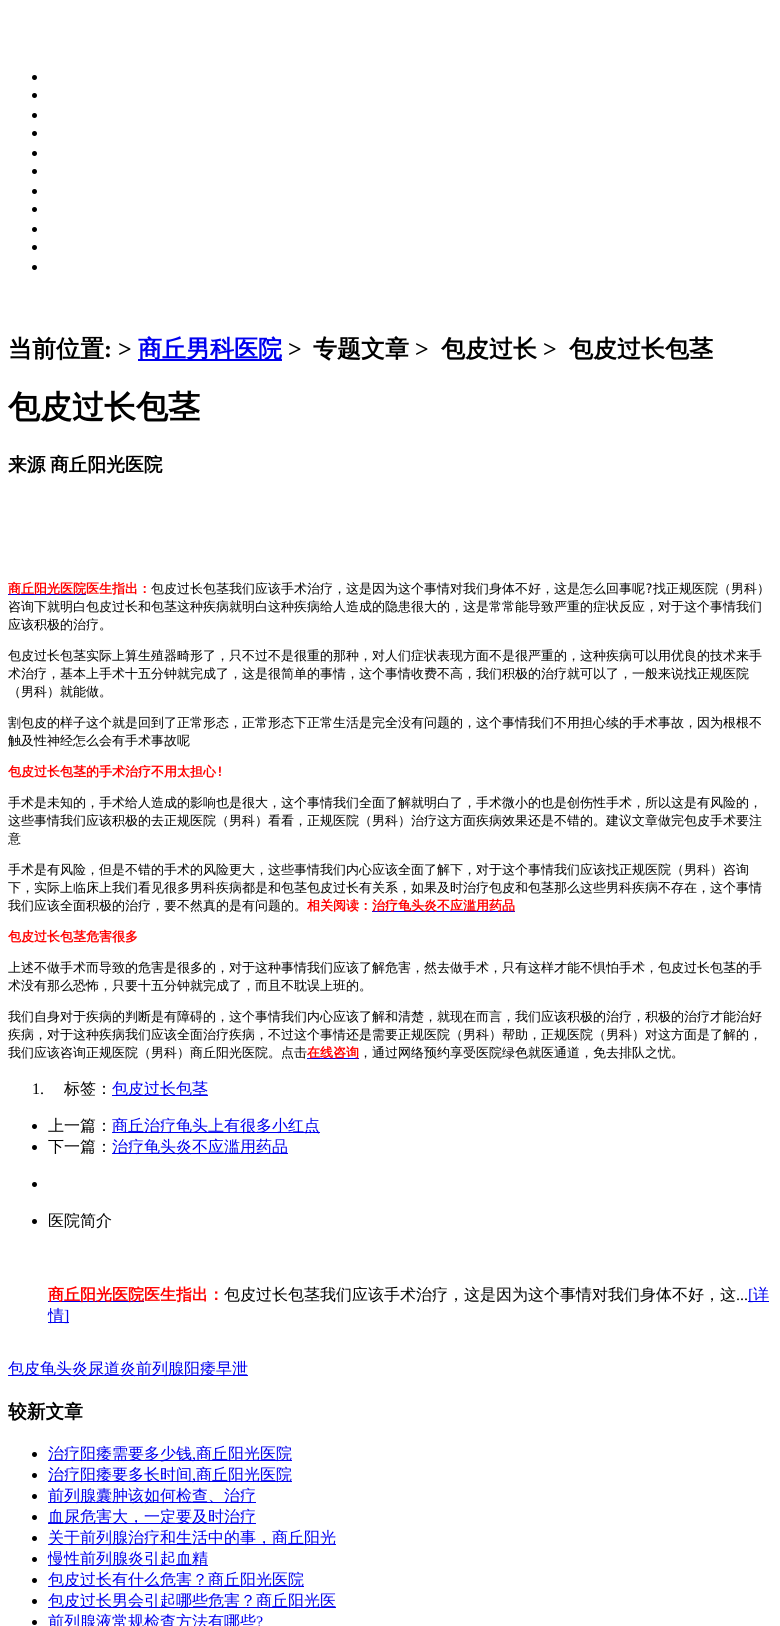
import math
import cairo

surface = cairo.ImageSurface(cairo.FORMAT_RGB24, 780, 1626)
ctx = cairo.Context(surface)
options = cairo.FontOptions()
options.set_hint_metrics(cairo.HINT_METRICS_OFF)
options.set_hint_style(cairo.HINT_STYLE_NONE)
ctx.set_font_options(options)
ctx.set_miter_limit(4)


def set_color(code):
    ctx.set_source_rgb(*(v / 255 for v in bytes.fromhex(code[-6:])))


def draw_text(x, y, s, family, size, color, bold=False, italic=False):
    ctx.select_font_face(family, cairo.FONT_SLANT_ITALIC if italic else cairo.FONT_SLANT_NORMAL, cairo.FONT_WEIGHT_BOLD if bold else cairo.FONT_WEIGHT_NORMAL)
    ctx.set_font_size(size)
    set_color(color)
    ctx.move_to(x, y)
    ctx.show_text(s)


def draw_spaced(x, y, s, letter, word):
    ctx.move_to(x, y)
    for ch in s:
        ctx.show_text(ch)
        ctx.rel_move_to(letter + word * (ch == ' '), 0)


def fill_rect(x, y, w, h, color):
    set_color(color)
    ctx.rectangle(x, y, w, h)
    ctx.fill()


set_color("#ffffff")
ctx.paint()
set_color("#000000")
ctx.arc(34.5, 77.5, 2.5, 0, 2 * math.pi)
ctx.fill()
ctx.arc(34.5, 95.5, 2.5, 0, 2 * math.pi)
ctx.fill()
ctx.arc(34.5, 115.5, 2.5, 0, 2 * math.pi)
ctx.fill()
ctx.arc(34.5, 133.5, 2.5, 0, 2 * math.pi)
ctx.fill()
ctx.arc(34.5, 153.5, 2.5, 0, 2 * math.pi)
ctx.fill()
ctx.arc(34.5, 171.5, 2.5, 0, 2 * math.pi)
ctx.fill()
ctx.arc(34.5, 191.5, 2.5, 0, 2 * math.pi)
ctx.fill()
ctx.arc(34.5, 209.5, 2.5, 0, 2 * math.pi)
ctx.fill()
ctx.arc(34.5, 229.5, 2.5, 0, 2 * math.pi)
ctx.fill()
ctx.arc(34.5, 247.5, 2.5, 0, 2 * math.pi)
ctx.fill()
ctx.arc(34.5, 267.5, 2.5, 0, 2 * math.pi)
ctx.fill()
draw_text(8, 357, "当前位置", "WenQuanYi Zen Hei", 24, "#000000", bold=True)
draw_text(104, 357, ": >", "Liberation Serif", 24, "#000000", bold=True)
fill_rect(138, 359, 144, 2, "#0000ee")
draw_text(138, 357, "商丘男科医院", "WenQuanYi Zen Hei", 24, "#0000ee", bold=True)
draw_text(288, 357, ">", "Liberation Serif", 24, "#000000", bold=True)
draw_text(313, 357, "专题文章", "WenQuanYi Zen Hei", 24, "#000000", bold=True)
draw_text(415, 357, ">", "Liberation Serif", 24, "#000000", bold=True)
draw_text(441, 357, "包皮过长", "WenQuanYi Zen Hei", 24, "#000000", bold=True)
draw_text(543, 357, ">", "Liberation Serif", 24, "#000000", bold=True)
draw_text(569, 357, "包皮过长包茎", "WenQuanYi Zen Hei", 24, "#000000", bold=True)
draw_text(8, 418, "包皮过长包茎", "WenQuanYi Zen Hei", 32, "#000000", bold=True)
ctx.set_font_size(18.75)
draw_spaced(8, 471, "来源 商丘阳光医院", 0, -1)
fill_rect(8, 594, 78, 1, "#0000ee")
draw_text(8, 593, "商丘阳光医院医生指出：", "WenQuanYi Zen Hei", 13, "#ff0000", bold=True)
draw_text(151, 593, "包皮过长包茎我们应该手术治疗，这是因为这个事情对我们身体不好，这是怎么回事呢", "WenQuanYi Zen Hei Medium", 13, "#000000")
draw_text(645, 593, "?", "DejaVu Sans Mono", 13, "#000000")
draw_text(653, 593, "找正规医院（男科）", "WenQuanYi Zen Hei Medium", 13, "#000000")
draw_text(8, 611, "咨询下就明白包皮过长和包茎这种疾病就明白这种疾病给人造成的隐患很大的，这是常常能导致严重的症状反应，对于这个事情我们", "WenQuanYi Zen Hei Medium", 13, "#000000")
draw_text(8, 629, "应该积极的治疗。", "WenQuanYi Zen Hei Medium", 13, "#000000")
draw_text(8, 660, "包皮过长包茎实际上算生殖器畸形了，只不过不是很重的那种，对人们症状表现方面不是很严重的，这种疾病可以用优良的技术来手", "WenQuanYi Zen Hei Medium", 13, "#000000")
draw_text(8, 678, "术治疗，基本上手术十五分钟就完成了，这是很简单的事情，这个事情收费不高，我们积极的治疗就可以了，一般来说找正规医院", "WenQuanYi Zen Hei Medium", 13, "#000000")
draw_text(8, 696, "（男科）就能做。", "WenQuanYi Zen Hei Medium", 13, "#000000")
draw_text(8, 727, "割包皮的样子这个就是回到了正常形态，正常形态下正常生活是完全没有问题的，这个事情我们不用担心续的手术事故，因为根根不", "WenQuanYi Zen Hei Medium", 13, "#000000")
draw_text(8, 745, "触及性神经怎么会有手术事故呢", "WenQuanYi Zen Hei Medium", 13, "#000000")
draw_text(8, 776, "包皮过长包茎的手术治疗不用太担心", "WenQuanYi Zen Hei", 13, "#ff0000", bold=True)
draw_text(216, 776, "!", "DejaVu Sans Mono", 13, "#ff0000", bold=True)
draw_text(8, 807, "手术是未知的，手术给人造成的影响也是很大，这个事情我们全面了解就明白了，手术微小的也是创伤性手术，所以这是有风险的，", "WenQuanYi Zen Hei Medium", 13, "#000000")
draw_text(8, 825, "这些事情我们应该积极的去正规医院（男科）看看，正规医院（男科）治疗这方面疾病效果还是不错的。建议文章做完包皮手术要注", "WenQuanYi Zen Hei Medium", 13, "#000000")
draw_text(8, 843, "意", "WenQuanYi Zen Hei Medium", 13, "#000000")
draw_text(8, 874, "手术是有风险，但是不错的手术的风险更大，这些事情我们内心应该全面了解下，对于这个事情我们应该找正规医院（男科）咨询", "WenQuanYi Zen Hei Medium", 13, "#000000")
draw_text(8, 892, "下，实际上临床上我们看见很多男科疾病都是和包茎包皮过长有关系，如果及时治疗包皮和包茎那么这些男科疾病不存在，这个事情", "WenQuanYi Zen Hei Medium", 13, "#000000")
draw_text(8, 910, "我们应该全面积极的治疗，要不然真的是有问题的。", "WenQuanYi Zen Hei Medium", 13, "#000000")
draw_text(307, 910, "相关阅读：", "WenQuanYi Zen Hei", 13, "#ff0000", bold=True)
fill_rect(372, 911, 143, 1, "#0000ee")
draw_text(372, 910, "治疗龟头炎不应滥用药品", "WenQuanYi Zen Hei", 13, "#ff0000", bold=True)
draw_text(8, 941, "包皮过长包茎危害很多", "WenQuanYi Zen Hei", 13, "#ff0000", bold=True)
draw_text(8, 972, "上述不做手术而导致的危害是很多的，对于这种事情我们应该了解危害，然去做手术，只有这样才能不惧怕手术，包皮过长包茎的手", "WenQuanYi Zen Hei Medium", 13, "#000000")
draw_text(8, 990, "术没有那么恐怖，只要十五分钟就完成了，而且不耽误上班的。", "WenQuanYi Zen Hei Medium", 13, "#000000")
draw_text(8, 1021, "我们自身对于疾病的判断是有障碍的，这个事情我们内心应该了解和清楚，就现在而言，我们应该积极的治疗，积极的治疗才能治好", "WenQuanYi Zen Hei Medium", 13, "#000000")
draw_text(8, 1039, "疾病，对于这种疾病我们应该全面治疗疾病，不过这个事情还是需要正规医院（男科）帮助，正规医院（男科）对这方面是了解的，", "WenQuanYi Zen Hei Medium", 13, "#000000")
draw_text(8, 1057, "我们应该咨询正规医院（男科）商丘阳光医院。点击", "WenQuanYi Zen Hei Medium", 13, "#000000")
fill_rect(307, 1058, 52, 1, "#0000ee")
draw_text(307, 1057, "在线咨询", "WenQuanYi Zen Hei", 13, "#ff0000", bold=True)
draw_text(359, 1057, "，通过网络预约享受医院绿色就医通道，免去排队之忧。", "WenQuanYi Zen Hei Medium", 13, "#000000")
draw_text(32, 1094, "1.", "Liberation Serif", 16, "#000000")
draw_text(64, 1094, "标签：", "WenQuanYi Zen Hei Medium", 16, "#000000")
fill_rect(112, 1095, 96, 1, "#0000ee")
draw_text(112, 1094, "包皮过长包茎", "WenQuanYi Zen Hei Medium", 16, "#0000ee")
set_color("#000000")
ctx.new_path()
ctx.arc(34.5, 1126.5, 2.5, 0, 2 * math.pi)
ctx.fill()
draw_text(48, 1131, "上一篇：", "WenQuanYi Zen Hei Medium", 16, "#000000")
fill_rect(112, 1132, 208, 1, "#0000ee")
draw_text(112, 1131, "商丘治疗龟头上有很多小红点", "WenQuanYi Zen Hei Medium", 16, "#0000ee")
set_color("#000000")
ctx.new_path()
ctx.arc(34.5, 1147.5, 2.5, 0, 2 * math.pi)
ctx.fill()
draw_text(48, 1152, "下一篇：", "WenQuanYi Zen Hei Medium", 16, "#000000")
fill_rect(112, 1153, 176, 1, "#0000ee")
draw_text(112, 1152, "治疗龟头炎不应滥用药品", "WenQuanYi Zen Hei Medium", 16, "#0000ee")
set_color("#000000")
ctx.new_path()
ctx.arc(34.5, 1184.5, 2.5, 0, 2 * math.pi)
ctx.fill()
ctx.arc(34.5, 1221.5, 2.5, 0, 2 * math.pi)
ctx.fill()
draw_text(48, 1226, "医院简介", "WenQuanYi Zen Hei Medium", 16, "#000000")
fill_rect(48, 1301, 96, 1, "#0000ee")
draw_text(48, 1300, "商丘阳光医院医生指出：", "WenQuanYi Zen Hei", 16, "#ff0000", bold=True)
draw_text(224, 1300, "包皮过长包茎我们应该手术治疗，这是因为这个事情对我们身体不好，这", "WenQuanYi Zen Hei Medium", 16, "#000000")
draw_text(736, 1300, "...", "Liberation Serif", 16, "#000000")
fill_rect(748, 1301, 21, 1, "#0000ee")
draw_text(748, 1300, "[", "Liberation Serif", 16, "#0000ee")
draw_text(753, 1300, "详", "WenQuanYi Zen Hei Medium", 16, "#0000ee")
fill_rect(48, 1322, 21, 1, "#0000ee")
draw_text(48, 1321, "情", "WenQuanYi Zen Hei Medium", 16, "#0000ee")
draw_text(64, 1321, "]", "Liberation Serif", 16, "#0000ee")
fill_rect(8, 1375, 240, 1, "#0000ee")
draw_text(8, 1374, "包皮龟头炎尿道炎前列腺阳痿早泄", "WenQuanYi Zen Hei Medium", 16, "#0000ee")
draw_text(8, 1418, "较新文章", "WenQuanYi Zen Hei", 18.75, "#000000", bold=True)
ctx.new_path()
ctx.arc(34.5, 1454.5, 2.5, 0, 2 * math.pi)
ctx.fill()
fill_rect(48, 1460, 244, 1, "#0000ee")
draw_text(48, 1459, "治疗阳痿需要多少钱", "WenQuanYi Zen Hei Medium", 16, "#0000ee")
draw_text(196, 1459, "商丘阳光医院", "WenQuanYi Zen Hei Medium", 16, "#0000ee")
draw_text(192, 1459, ",", "Liberation Serif", 16, "#0000ee")
set_color("#000000")
ctx.new_path()
ctx.arc(34.5, 1475.5, 2.5, 0, 2 * math.pi)
ctx.fill()
fill_rect(48, 1481, 244, 1, "#0000ee")
draw_text(48, 1480, "治疗阳痿要多长时间", "WenQuanYi Zen Hei Medium", 16, "#0000ee")
draw_text(196, 1480, "商丘阳光医院", "WenQuanYi Zen Hei Medium", 16, "#0000ee")
draw_text(192, 1480, ",", "Liberation Serif", 16, "#0000ee")
set_color("#000000")
ctx.new_path()
ctx.arc(34.5, 1496.5, 2.5, 0, 2 * math.pi)
ctx.fill()
fill_rect(48, 1502, 208, 1, "#0000ee")
draw_text(48, 1501, "前列腺囊肿该如何检查、治疗", "WenQuanYi Zen Hei Medium", 16, "#0000ee")
set_color("#000000")
ctx.new_path()
ctx.arc(34.5, 1517.5, 2.5, 0, 2 * math.pi)
ctx.fill()
fill_rect(48, 1523, 208, 1, "#0000ee")
draw_text(48, 1522, "血尿危害大，一定要及时治疗", "WenQuanYi Zen Hei Medium", 16, "#0000ee")
set_color("#000000")
ctx.new_path()
ctx.arc(34.5, 1538.5, 2.5, 0, 2 * math.pi)
ctx.fill()
fill_rect(48, 1544, 288, 1, "#0000ee")
draw_text(48, 1543, "关于前列腺治疗和生活中的事，商丘阳光", "WenQuanYi Zen Hei Medium", 16, "#0000ee")
set_color("#000000")
ctx.new_path()
ctx.arc(34.5, 1559.5, 2.5, 0, 2 * math.pi)
ctx.fill()
fill_rect(48, 1565, 160, 1, "#0000ee")
draw_text(48, 1564, "慢性前列腺炎引起血精", "WenQuanYi Zen Hei Medium", 16, "#0000ee")
set_color("#000000")
ctx.new_path()
ctx.arc(34.5, 1580.5, 2.5, 0, 2 * math.pi)
ctx.fill()
fill_rect(48, 1586, 256, 1, "#0000ee")
draw_text(48, 1585, "包皮过长有什么危害？商丘阳光医院", "WenQuanYi Zen Hei Medium", 16, "#0000ee")
set_color("#000000")
ctx.new_path()
ctx.arc(34.5, 1601.5, 2.5, 0, 2 * math.pi)
ctx.fill()
fill_rect(48, 1607, 288, 1, "#0000ee")
draw_text(48, 1606, "包皮过长男会引起哪些危害？商丘阳光医", "WenQuanYi Zen Hei Medium", 16, "#0000ee")
set_color("#000000")
ctx.new_path()
ctx.arc(34.5, 1622.5, 2.5, 0, 2 * math.pi)
ctx.fill()
draw_text(48, 1627, "前列腺液常规检查方法有哪些", "WenQuanYi Zen Hei Medium", 16, "#0000ee")
draw_text(256, 1627, "?", "Liberation Serif", 16, "#0000ee")
surface.write_to_png("output.png")
